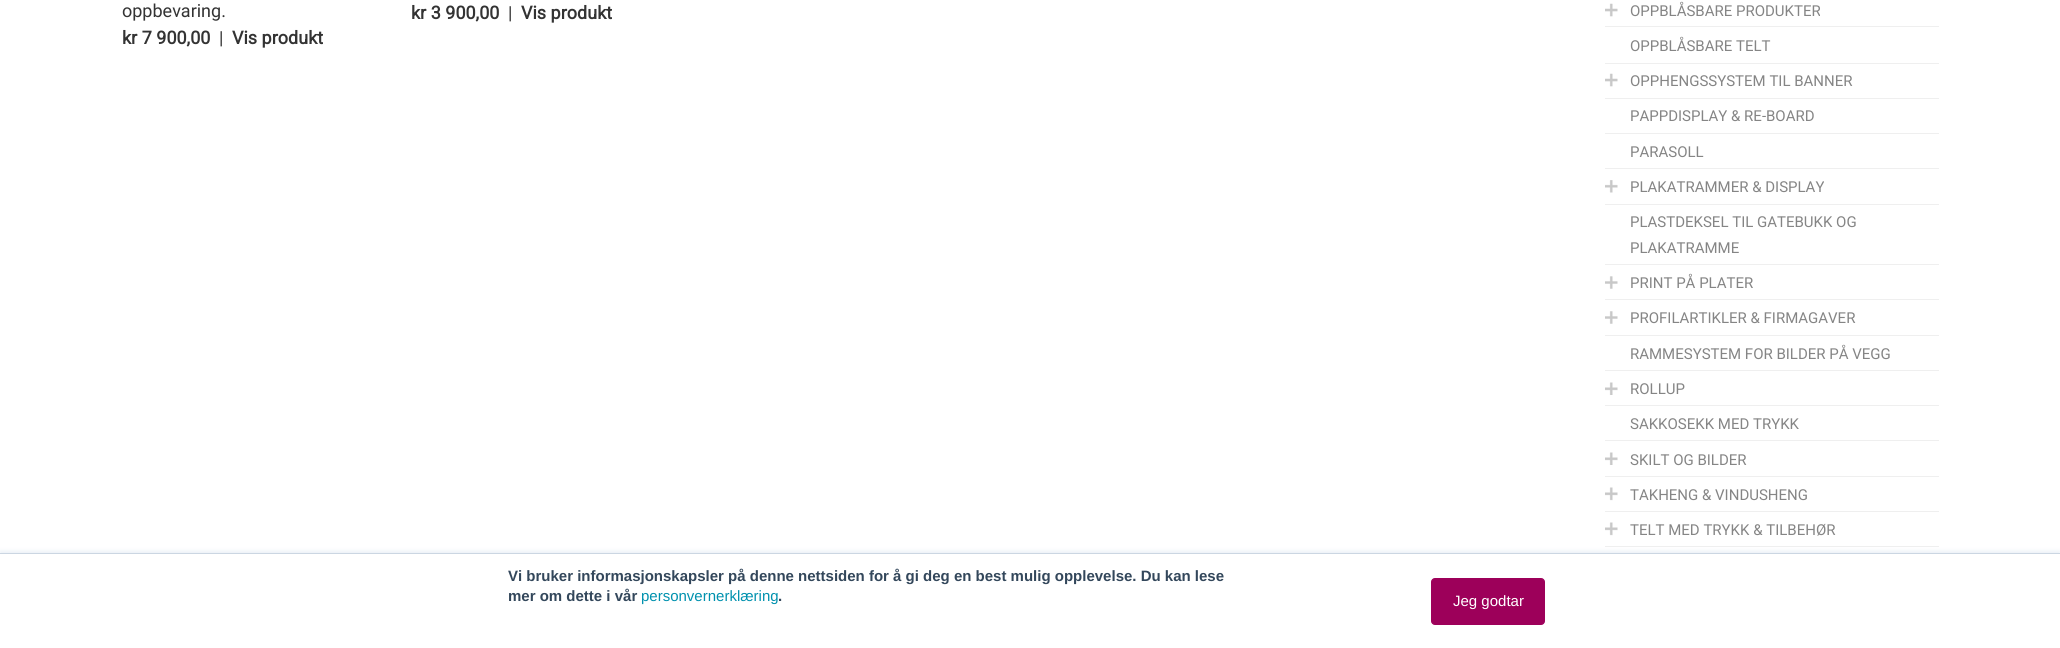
import math
import cairo

surface = cairo.ImageSurface(cairo.FORMAT_RGB24, 2060, 648)
ctx = cairo.Context(surface)
options = cairo.FontOptions()
options.set_hint_metrics(cairo.HINT_METRICS_OFF)
options.set_hint_style(cairo.HINT_STYLE_NONE)
ctx.set_font_options(options)
ctx.set_miter_limit(4)


def set_color(code):
    ctx.set_source_rgb(*(v / 255 for v in bytes.fromhex(code[-6:])))


def draw_text(x, y, s, family, size, color, bold=False, italic=False):
    ctx.select_font_face(family, cairo.FONT_SLANT_ITALIC if italic else cairo.FONT_SLANT_NORMAL, cairo.FONT_WEIGHT_BOLD if bold else cairo.FONT_WEIGHT_NORMAL)
    ctx.set_font_size(size)
    set_color(color)
    ctx.move_to(x, y)
    ctx.show_text(s)


def fill_rect(x, y, w, h, color):
    set_color(color)
    ctx.rectangle(x, y, w, h)
    ctx.fill()


def rounded_rect(x, y, w, h, r):
    ctx.new_sub_path()
    for i, (u, v) in enumerate([(x + w - r, y + h - r), (x + r, y + h - r), (x + r, y + r), (x + w - r, y + r)]):
        ctx.arc(u, v, r, i * math.pi / 2, (i + 1) * math.pi / 2)
    ctx.close_path()


def draw_shadow(x, y, w, h, r, blur, alpha):
    ctx.push_group_with_content(cairo.CONTENT_ALPHA)
    ctx.set_operator(cairo.OPERATOR_SOURCE)
    for i in range(15, -16, -2):
        e = blur * i / 6
        if min(w, h) + 2 * e > 0:
            ctx.set_source_rgba(0, 0, 0, alpha * math.erfc((i - 1) / 8.5) / 2)
            rounded_rect(x - e, y - e, w + 2 * e, h + 2 * e, max(0, min(r + e + blur * .6, min(w, h) / 2 + e)))
            ctx.fill()
    ctx.mask(ctx.pop_group())


def draw_image(path, x, y, w, h):
    ctx.save()
    ctx.set_source_surface(cairo.ImageSurface.create_from_png(path), x, y)
    ctx.rectangle(x, y, w, h)
    ctx.fill()
    ctx.restore()


set_color("#ffffff")
ctx.paint()
draw_text(122, 17, "oppbevaring.", "Roboto", 18, "#333333")
draw_text(122, 44, "kr 7 900,00", "Roboto", 18, "#333333", bold=True)
draw_text(219, 44, "|", "Roboto", 18, "#333333")
draw_text(232, 44, "Vis produkt", "Roboto", 18, "#333333", bold=True)
draw_text(411, 19, "kr 3 900,00", "Roboto", 18, "#333333", bold=True)
draw_text(508, 19, "|", "Roboto", 18, "#333333")
draw_text(521, 19, "Vis produkt", "Roboto", 18, "#333333", bold=True)
draw_image("assets/img1.png", 1605, 3, 13, 14)
fill_rect(1605, 26, 334, 1, "#efefef")
draw_text(1630, 16, "OPPBLÅSBARE PRODUKTER", "Roboto", 15, "#858585")
fill_rect(1605, 63, 334, 1, "#efefef")
draw_text(1630, 51, "OPPBLÅSBARE TELT", "Roboto", 15, "#858585")
draw_image("assets/img1.png", 1605, 73, 13, 14)
fill_rect(1605, 98, 334, 1, "#efefef")
draw_text(1630, 86, "OPPHENGSSYSTEM TIL BANNER", "Roboto", 15, "#858585")
fill_rect(1605, 133, 334, 1, "#efefef")
draw_text(1630, 121, "PAPPDISPLAY & RE-BOARD", "Roboto", 15, "#858585")
fill_rect(1605, 168, 334, 1, "#efefef")
draw_text(1630, 157, "PARASOLL", "Roboto", 15, "#858585")
draw_image("assets/img2.png", 1605, 180, 13, 13)
fill_rect(1605, 204, 334, 1, "#efefef")
draw_text(1630, 192, "PLAKATRAMMER & DISPLAY", "Roboto", 15, "#858585")
fill_rect(1605, 264, 334, 1, "#efefef")
draw_text(1630, 227, "PLASTDEKSEL TIL GATEBUKK OG", "Roboto", 15, "#858585")
draw_text(1630, 253, "PLAKATRAMME", "Roboto", 15, "#858585")
draw_image("assets/img3.png", 1605, 276, 13, 13)
fill_rect(1605, 299, 334, 1, "#efefef")
draw_text(1630, 288, "PRINT PÅ PLATER", "Roboto", 15, "#858585")
draw_image("assets/img4.png", 1605, 311, 13, 13)
fill_rect(1605, 335, 334, 1, "#efefef")
draw_text(1630, 323, "PROFILARTIKLER & FIRMAGAVER", "Roboto", 15, "#858585")
fill_rect(1605, 370, 334, 1, "#efefef")
draw_text(1630, 359, "RAMMESYSTEM FOR BILDER PÅ VEGG", "Roboto", 15, "#858585")
draw_image("assets/img5.png", 1605, 382, 13, 13)
fill_rect(1605, 405, 334, 1, "#efefef")
draw_text(1630, 394, "ROLLUP", "Roboto", 15, "#858585")
fill_rect(1605, 440, 334, 1, "#efefef")
draw_text(1630, 429, "SAKKOSEKK MED TRYKK", "Roboto", 15, "#858585")
draw_image("assets/img5.png", 1605, 452, 13, 13)
fill_rect(1605, 476, 334, 1, "#efefef")
draw_text(1630, 465, "SKILT OG BILDER", "Roboto", 15, "#858585")
draw_image("assets/img6.png", 1605, 487, 13, 14)
fill_rect(1605, 511, 334, 1, "#efefef")
draw_text(1630, 500, "TAKHENG & VINDUSHENG", "Roboto", 15, "#858585")
draw_image("assets/img6.png", 1605, 522, 13, 14)
fill_rect(1605, 546, 334, 1, "#efefef")
draw_text(1630, 535, "TELT MED TRYKK & TILBEHØR", "Roboto", 15, "#858585")
set_color("#eaf0f6")
draw_shadow(0, 551, 2060, 97, 0, 2, 1)
fill_rect(0, 554, 2060, 94, "#ffffff")
fill_rect(0, 553, 2060, 1, "#cbd6e2")
draw_text(508, 581, "Vi bruker informasjonskapsler på denne nettsiden for å gi deg en best mulig opplevelse. Du kan lese", "Liberation Sans", 15, "#33475b", bold=True)
draw_text(508, 601, "mer om dette i vår", "Liberation Sans", 15, "#33475b", bold=True)
draw_text(641, 601, "personvernerklæring", "Liberation Sans", 15, "#0091ae")
draw_text(778, 601, ".", "Liberation Sans", 15, "#33475b", bold=True)
set_color("#9d005a")
rounded_rect(1431.5, 578.5, 113, 46, 3.5)
ctx.fill_preserve()
ctx.set_line_width(1)
ctx.stroke()
draw_text(1453, 606, "Jeg godtar", "Liberation Sans", 15, "#ffffff")
surface.write_to_png("output.png")
